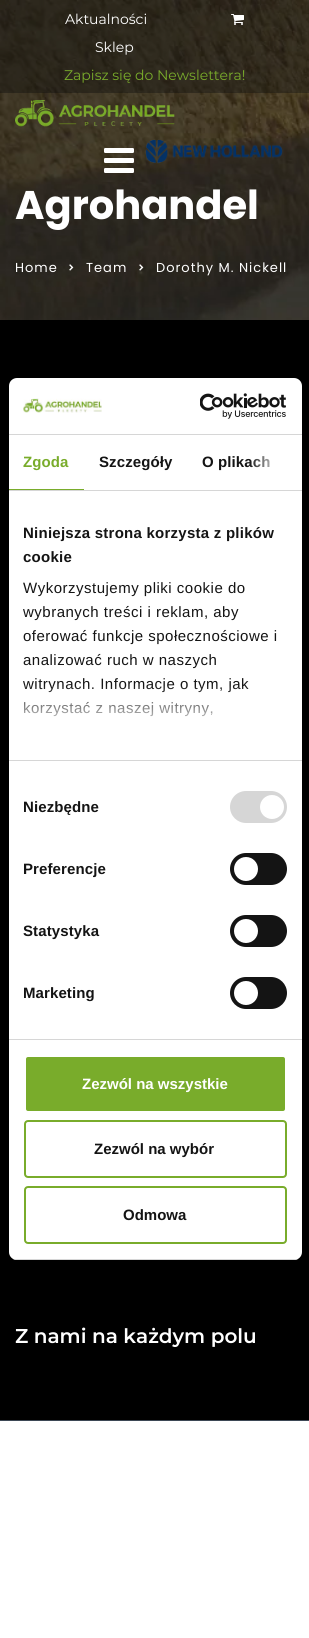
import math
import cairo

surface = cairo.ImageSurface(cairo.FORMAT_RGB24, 309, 1638)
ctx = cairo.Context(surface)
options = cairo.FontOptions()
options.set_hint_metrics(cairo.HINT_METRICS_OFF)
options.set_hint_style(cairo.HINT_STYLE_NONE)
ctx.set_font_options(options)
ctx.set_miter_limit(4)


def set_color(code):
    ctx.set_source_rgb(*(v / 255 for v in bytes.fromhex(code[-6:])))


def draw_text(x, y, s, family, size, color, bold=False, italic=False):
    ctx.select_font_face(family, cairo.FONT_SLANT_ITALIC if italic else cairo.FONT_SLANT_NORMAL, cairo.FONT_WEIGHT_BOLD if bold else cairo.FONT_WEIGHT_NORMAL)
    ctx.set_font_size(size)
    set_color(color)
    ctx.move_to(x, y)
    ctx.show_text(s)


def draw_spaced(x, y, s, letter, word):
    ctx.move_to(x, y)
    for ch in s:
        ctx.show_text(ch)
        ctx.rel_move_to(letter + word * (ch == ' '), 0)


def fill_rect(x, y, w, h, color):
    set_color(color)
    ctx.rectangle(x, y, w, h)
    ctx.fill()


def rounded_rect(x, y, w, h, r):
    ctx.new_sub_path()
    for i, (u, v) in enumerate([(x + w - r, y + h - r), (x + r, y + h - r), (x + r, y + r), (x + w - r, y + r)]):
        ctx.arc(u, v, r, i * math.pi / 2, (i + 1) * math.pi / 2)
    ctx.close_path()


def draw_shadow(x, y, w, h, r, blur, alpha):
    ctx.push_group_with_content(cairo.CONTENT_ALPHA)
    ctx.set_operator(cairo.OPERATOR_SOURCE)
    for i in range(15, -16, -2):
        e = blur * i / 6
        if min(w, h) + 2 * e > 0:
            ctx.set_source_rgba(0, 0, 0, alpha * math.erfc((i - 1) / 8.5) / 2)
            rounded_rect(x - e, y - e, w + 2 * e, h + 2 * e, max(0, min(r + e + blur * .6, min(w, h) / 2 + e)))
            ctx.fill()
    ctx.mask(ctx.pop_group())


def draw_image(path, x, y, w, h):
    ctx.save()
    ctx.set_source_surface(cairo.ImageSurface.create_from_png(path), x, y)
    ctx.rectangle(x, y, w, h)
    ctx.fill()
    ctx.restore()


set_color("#ffffff")
ctx.paint()
draw_image("assets/img5.png", 0, 0, 309, 320)
ctx.set_source_rgba(0.055, 0.051, 0.051, 0.4)
ctx.rectangle(0, 0, 309, 93)
ctx.fill()
draw_text(65, 24, "Aktualności", "Montserrat", 14, "#ffffff")
draw_image("assets/img1.png", 231, 14, 13, 11)
draw_text(95, 52, "Sklep", "Montserrat", 14, "#ffffff")
draw_text(64, 80, "Zapisz się do Newslettera!", "Montserrat", 14, "#79ac2b")
draw_image("assets/img2.png", 15, 100, 160, 27)
draw_image("assets/img3.png", 145, 139, 138, 24)
draw_image("assets/img4.png", 104, 148, 30, 25)
draw_text(15, 219, "Agrohandel", "Poppins", 40, "#ffffff", bold=True)
ctx.select_font_face("Poppins")
ctx.set_font_size(13)
draw_spaced(15, 272, "Home", 1, 0)
draw_image("assets/img6.png", 69, 264, 5, 7)
draw_spaced(86, 272, "Team", 1, 0)
draw_image("assets/img7.png", 139, 264, 5, 7)
draw_spaced(156, 272, "Dorothy M. Nickell", 1, 0)
fill_rect(0, 320, 309, 1100, "#000000")
set_color("#000000")
draw_shadow(9, 410, 293, 882, 8, 34, 0.3)
set_color("#ffffff")
rounded_rect(9, 378, 293, 882, 8)
ctx.fill()
fill_rect(9, 434, 293, 1, "#d6d6d6")
draw_image("assets/img8.png", 23, 398, 79, 15)
draw_image("assets/img9.png", 200, 393, 86, 26)
fill_rect(9, 490, 293, 1, "#d6d6d6")
fill_rect(9, 489, 75, 1, "#79ac2b")
ctx.select_font_face("Liberation Sans", cairo.FONT_SLANT_NORMAL, cairo.FONT_WEIGHT_BOLD)
ctx.set_font_size(15)
draw_spaced(23, 467, "Zgoda", 0.1, 0)
set_color("#141414")
draw_spaced(99, 467, "Szczegóły", 0.1, 0)
draw_spaced(202, 467, "O plikach", 0.1, 0)
gradient = cairo.LinearGradient(302, 463, 249, 463)
gradient.add_color_stop_rgba(0, 1, 1, 1, 1)
gradient.add_color_stop_rgba(0.5, 1, 1, 1, 0.8)
gradient.add_color_stop_rgba(1, 1, 1, 1, 0)
ctx.set_source(gradient)
ctx.rectangle(250, 456, 20, 12)
ctx.fill()
fill_rect(9, 760, 293, 1, "#d6d6d6")
set_color("#141414")
draw_spaced(23, 538, "Niniejsza strona korzysta z plików", 0.25, 0)
draw_spaced(23, 562, "cookie", 0.25, 0)
ctx.select_font_face("Liberation Sans")
draw_spaced(23, 593, "Wykorzystujemy pliki cookie do", 0.5, 0)
draw_spaced(23, 617, "wybranych treści i reklam, aby", 0.5, 0)
draw_spaced(23, 641, "oferować funkcje społecznościowe i", 0.5, 0)
draw_spaced(23, 665, "analizować ruch w naszych", 0.5, 0)
draw_spaced(23, 689, "witrynach. Informacje o tym, jak", 0.5, 0)
draw_spaced(23, 713, "korzystać z naszej witryny,", 0.5, 0)
gradient = cairo.LinearGradient(149, 760, 149, 685)
gradient.add_color_stop_rgba(0, 1, 1, 1, 1)
gradient.add_color_stop_rgba(0.5, 1, 1, 1, 0.8)
gradient.add_color_stop_rgba(1, 1, 1, 1, 0)
ctx.set_source(gradient)
ctx.rectangle(24, 686, 225, 31)
ctx.fill()
fill_rect(9, 1039, 293, 1, "#d6d6d6")
ctx.select_font_face("Liberation Sans", cairo.FONT_SLANT_NORMAL, cairo.FONT_WEIGHT_BOLD)
set_color("#141414")
draw_spaced(23, 812, "Niezbędne", 0.1, 0)
set_color("#d6d6d6")
rounded_rect(230, 791, 57, 32, 16)
ctx.fill()
set_color("#ffffff")
ctx.arc(272, 807, 12, 0, 2 * math.pi)
ctx.fill()
set_color("#141414")
draw_spaced(23, 874, "Preferencje", 0.1, 0)
rounded_rect(230, 853, 57, 32, 16)
ctx.fill()
set_color("#ffffff")
ctx.arc(246, 869, 12, 0, 2 * math.pi)
ctx.fill()
set_color("#141414")
draw_spaced(23, 936, "Statystyka", 0.1, 0)
rounded_rect(230, 915, 57, 32, 16)
ctx.fill()
set_color("#ffffff")
ctx.arc(246, 931, 12, 0, 2 * math.pi)
ctx.fill()
set_color("#141414")
draw_spaced(23, 998, "Marketing", 0.1, 0)
rounded_rect(230, 977, 57, 32, 16)
ctx.fill()
set_color("#ffffff")
ctx.arc(246, 993, 12, 0, 2 * math.pi)
ctx.fill()
ctx.save()
rounded_rect(9, 378, 293, 882, 8)
ctx.clip()
fill_rect(9, 1259, 293, 1, "#d6d6d6")
ctx.restore()
set_color("#79ac2b")
rounded_rect(25, 1056, 261, 56, 3)
ctx.fill_preserve()
set_color("#ffffff")
ctx.stroke()
draw_text(82, 1089, "Zezwól na wszystkie", "Liberation Sans", 15, "#ffffff", bold=True)
rounded_rect(25, 1121, 261, 56, 3)
set_color("#79ac2b")
ctx.stroke()
draw_text(94, 1154, "Zezwól na wybór", "Liberation Sans", 15, "#141414", bold=True)
rounded_rect(25, 1187, 261, 56, 3)
set_color("#79ac2b")
ctx.stroke()
draw_text(123, 1220, "Odmowa", "Liberation Sans", 15, "#141414", bold=True)
fill_rect(0, 1420, 309, 1, "#3d4755")
draw_text(15, 1343, "Z nami na każdym polu", "Montserrat SemiBold", 20, "#ffffff")
surface.write_to_png("output.png")
